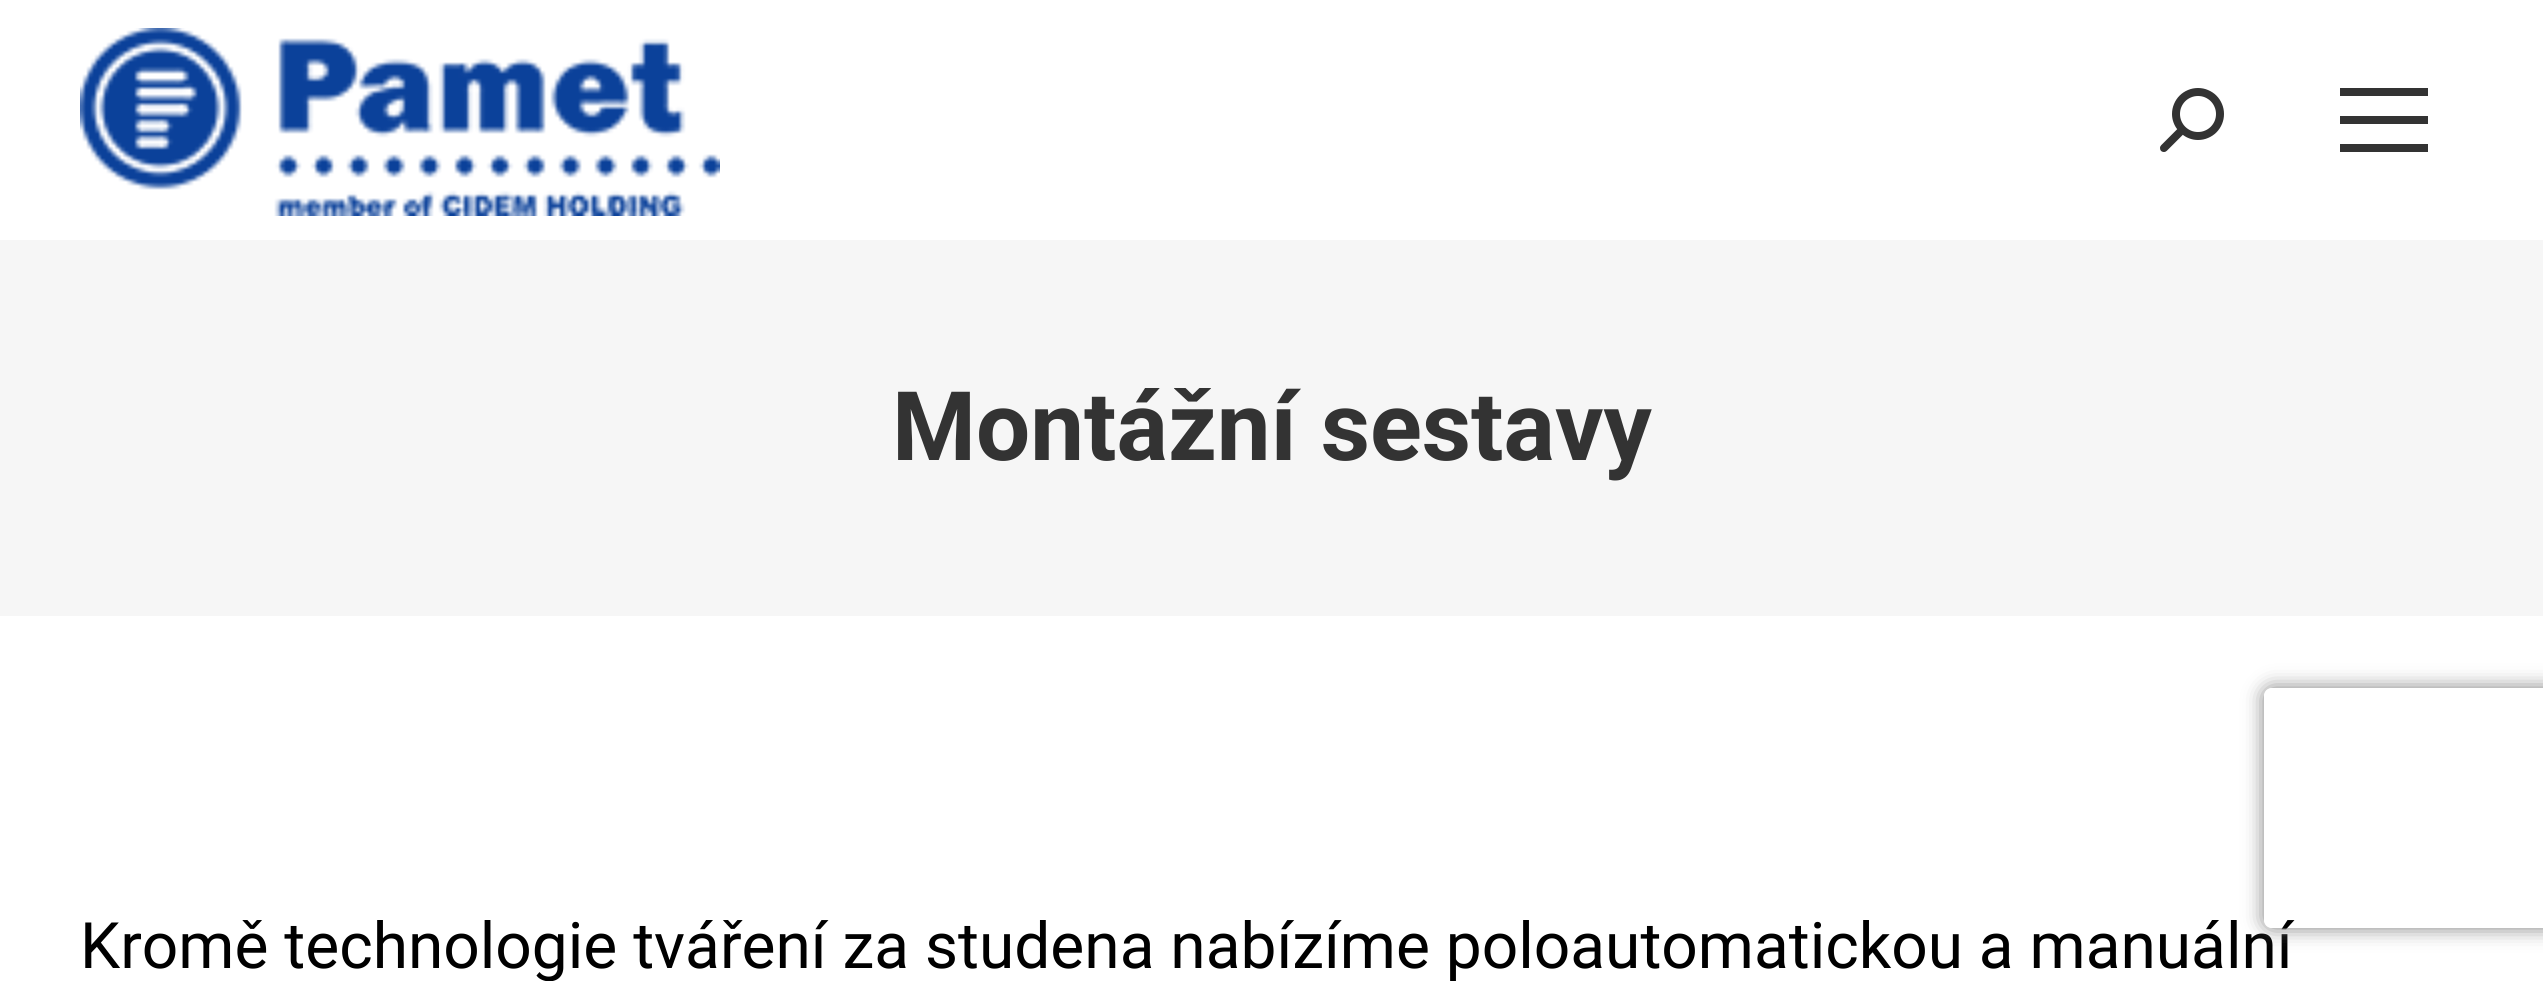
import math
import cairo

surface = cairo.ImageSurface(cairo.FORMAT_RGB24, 2543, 981)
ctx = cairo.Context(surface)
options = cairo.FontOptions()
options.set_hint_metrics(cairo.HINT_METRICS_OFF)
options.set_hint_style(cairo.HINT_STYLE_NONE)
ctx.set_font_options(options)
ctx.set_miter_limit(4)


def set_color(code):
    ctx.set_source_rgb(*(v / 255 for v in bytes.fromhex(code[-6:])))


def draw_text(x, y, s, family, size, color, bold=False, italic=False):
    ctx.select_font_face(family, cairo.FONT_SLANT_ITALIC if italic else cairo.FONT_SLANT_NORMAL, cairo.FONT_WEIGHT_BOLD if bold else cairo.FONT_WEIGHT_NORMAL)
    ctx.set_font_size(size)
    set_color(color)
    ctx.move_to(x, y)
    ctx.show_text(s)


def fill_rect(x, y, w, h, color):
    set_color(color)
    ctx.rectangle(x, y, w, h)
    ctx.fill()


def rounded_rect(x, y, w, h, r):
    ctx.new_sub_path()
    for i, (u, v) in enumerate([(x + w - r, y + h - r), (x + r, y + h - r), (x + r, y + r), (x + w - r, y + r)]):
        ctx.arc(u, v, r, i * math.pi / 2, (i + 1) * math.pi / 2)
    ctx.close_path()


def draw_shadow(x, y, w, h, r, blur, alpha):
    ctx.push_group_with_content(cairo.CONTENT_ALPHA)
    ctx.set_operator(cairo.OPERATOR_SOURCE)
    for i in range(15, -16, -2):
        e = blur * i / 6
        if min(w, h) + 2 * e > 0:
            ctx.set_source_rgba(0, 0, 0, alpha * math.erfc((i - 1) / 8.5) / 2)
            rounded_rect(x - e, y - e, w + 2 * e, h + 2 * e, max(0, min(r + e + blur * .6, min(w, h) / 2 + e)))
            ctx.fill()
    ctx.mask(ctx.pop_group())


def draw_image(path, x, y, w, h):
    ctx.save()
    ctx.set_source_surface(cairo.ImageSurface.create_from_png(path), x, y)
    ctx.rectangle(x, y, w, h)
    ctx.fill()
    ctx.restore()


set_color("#ffffff")
ctx.paint()
draw_image("assets/img1.png", 80, 28, 640, 188)
draw_image("assets/img2.png", 2160, 88, 64, 64)
fill_rect(2340, 88, 88, 8, "#333333")
fill_rect(2340, 116, 88, 8, "#333333")
fill_rect(2340, 144, 88, 8, "#333333")
fill_rect(0, 240, 2543, 376, "#f6f6f6")
draw_text(892, 460, "Montážní sestavy", "Roboto", 96, "#333333", bold=True)
draw_text(80, 968, "Kromě technologie tváření za studena nabízíme poloautomatickou a manuální", "Roboto", 64, "#000000")
ctx.save()
ctx.set_fill_rule(cairo.FILL_RULE_EVEN_ODD)
ctx.new_path()
ctx.move_to(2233, 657)
ctx.line_to(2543, 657)
ctx.line_to(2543, 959)
ctx.line_to(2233, 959)
ctx.close_path()
ctx.move_to(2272, 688)
ctx.line_to(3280, 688)
ctx.curve_to(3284.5, 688, 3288, 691.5, 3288, 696)
ctx.line_to(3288, 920)
ctx.curve_to(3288, 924.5, 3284.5, 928, 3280, 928)
ctx.line_to(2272, 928)
ctx.curve_to(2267.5, 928, 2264, 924.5, 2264, 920)
ctx.line_to(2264, 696)
ctx.curve_to(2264, 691.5, 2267.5, 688, 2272, 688)
ctx.close_path()
ctx.clip()
set_color("#808080")
draw_shadow(2264, 688, 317, 240, 8, 10, 1)
ctx.restore()
surface.write_to_png("output.png")
